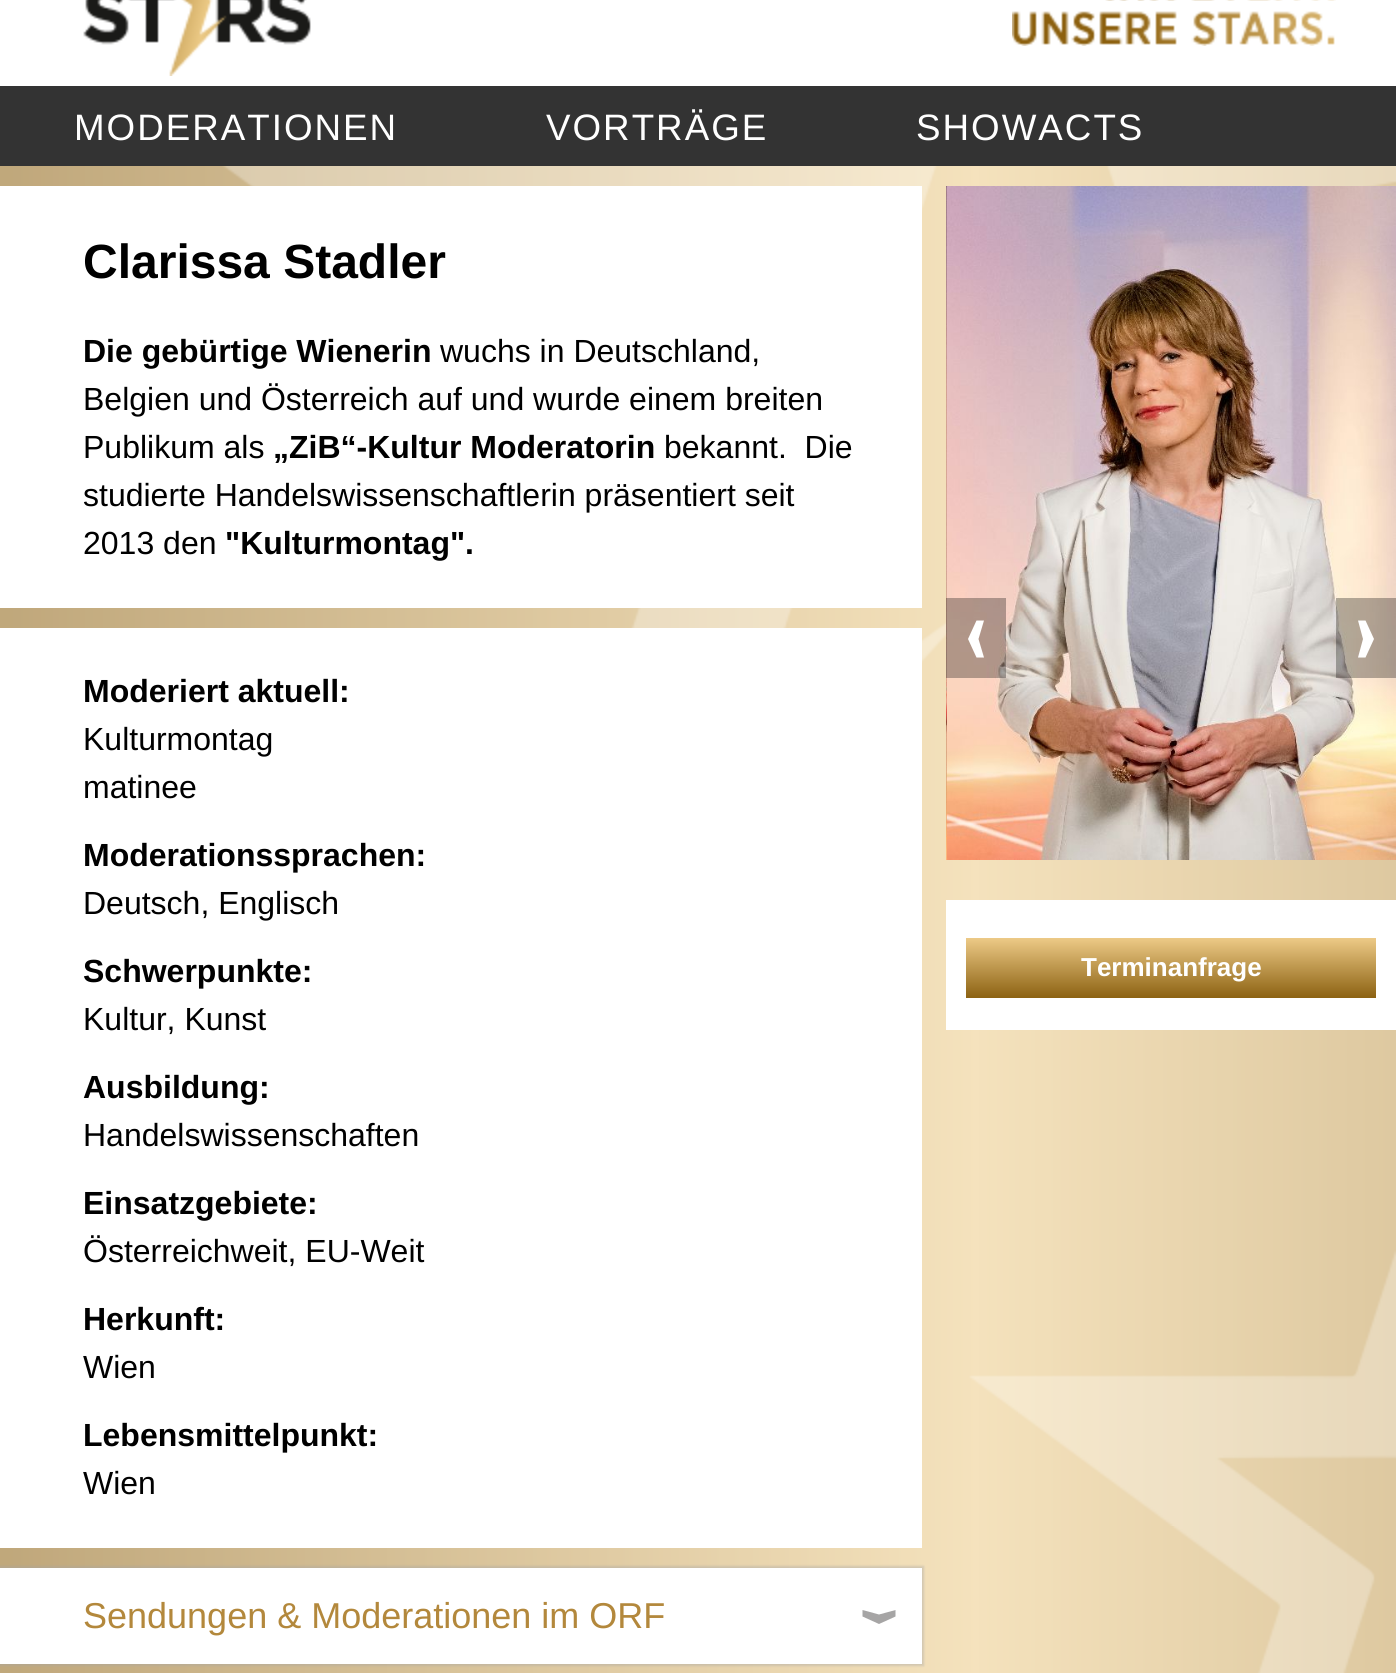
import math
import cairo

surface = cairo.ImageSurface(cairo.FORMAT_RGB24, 1396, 1673)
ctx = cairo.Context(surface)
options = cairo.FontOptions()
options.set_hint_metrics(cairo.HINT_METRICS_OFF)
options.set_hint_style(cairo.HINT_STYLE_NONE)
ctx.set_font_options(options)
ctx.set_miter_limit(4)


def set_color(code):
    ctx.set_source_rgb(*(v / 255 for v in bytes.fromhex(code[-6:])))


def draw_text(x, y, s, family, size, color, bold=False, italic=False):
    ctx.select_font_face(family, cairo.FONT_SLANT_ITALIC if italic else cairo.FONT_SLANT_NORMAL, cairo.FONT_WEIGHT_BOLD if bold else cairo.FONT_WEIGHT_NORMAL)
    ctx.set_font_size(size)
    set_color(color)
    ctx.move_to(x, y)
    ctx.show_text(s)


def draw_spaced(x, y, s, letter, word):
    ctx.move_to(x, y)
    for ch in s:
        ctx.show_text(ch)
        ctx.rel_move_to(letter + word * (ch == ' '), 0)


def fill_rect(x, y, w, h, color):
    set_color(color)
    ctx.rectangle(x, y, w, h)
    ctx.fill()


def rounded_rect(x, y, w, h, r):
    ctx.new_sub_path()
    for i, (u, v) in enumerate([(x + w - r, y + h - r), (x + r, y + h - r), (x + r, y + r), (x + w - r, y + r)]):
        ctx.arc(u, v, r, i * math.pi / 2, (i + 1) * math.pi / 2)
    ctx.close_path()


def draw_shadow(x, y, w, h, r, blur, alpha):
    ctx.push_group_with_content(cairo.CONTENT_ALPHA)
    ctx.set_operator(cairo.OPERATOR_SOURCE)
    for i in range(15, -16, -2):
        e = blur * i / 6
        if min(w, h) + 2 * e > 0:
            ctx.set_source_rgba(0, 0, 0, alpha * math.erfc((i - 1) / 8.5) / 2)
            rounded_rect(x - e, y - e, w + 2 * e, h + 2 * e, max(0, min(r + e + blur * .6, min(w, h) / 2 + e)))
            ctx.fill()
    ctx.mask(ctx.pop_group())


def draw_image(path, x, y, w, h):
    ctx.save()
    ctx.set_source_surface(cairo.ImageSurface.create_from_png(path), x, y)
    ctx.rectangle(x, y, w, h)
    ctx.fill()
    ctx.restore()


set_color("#ffffff")
ctx.paint()
draw_image("assets/img1.png", 0, 166, 1396, 1507)
draw_image("assets/img2.png", 83, 0, 228, 76)
draw_image("assets/img3.png", 1012, 0, 324, 46)
fill_rect(0, 86, 1396, 80, "#333333")
ctx.select_font_face("Liberation Sans")
ctx.set_font_size(36.75)
set_color("#ffffff")
draw_spaced(74, 140, "MODERATIONEN", 2, 0)
draw_spaced(546, 140, "VORTRÄGE", 2, 0)
draw_spaced(916, 140, "SHOWACTS", 2, 0)
fill_rect(0, 186, 922, 422, "#ffffff")
draw_text(83, 278, "Clarissa Stadler", "Liberation Sans", 48, "#000000", bold=True)
draw_text(83, 362, "Die gebürtige Wienerin", "Liberation Sans", 32, "#000000", bold=True)
draw_text(440, 362, "wuchs in Deutschland,", "Liberation Sans", 32, "#000000")
draw_text(83, 410, "Belgien und Österreich auf und wurde einem breiten", "Liberation Sans", 32, "#000000")
draw_text(83, 458, "Publikum als", "Liberation Sans", 32, "#000000")
draw_text(273, 458, "„ZiB“-Kultur Moderatorin", "Liberation Sans", 32, "#000000", bold=True)
draw_text(664, 458, "bekannt.  Die", "Liberation Sans", 32, "#000000")
draw_text(83, 506, "studierte Handelswissenschaftlerin präsentiert seit", "Liberation Sans", 32, "#000000")
draw_text(83, 554, "2013 den", "Liberation Sans", 32, "#000000")
draw_text(225, 554, "\"Kulturmontag\".", "Liberation Sans", 32, "#000000", bold=True)
fill_rect(0, 628, 922, 920, "#ffffff")
draw_text(83, 702, "Moderiert aktuell:", "Liberation Sans", 32, "#000000", bold=True)
draw_text(83, 750, "Kulturmontag", "Liberation Sans", 32, "#000000")
draw_text(83, 798, "matinee", "Liberation Sans", 32, "#000000")
draw_text(83, 866, "Moderationssprachen:", "Liberation Sans", 32, "#000000", bold=True)
draw_text(83, 914, "Deutsch, Englisch", "Liberation Sans", 32, "#000000")
draw_text(83, 982, "Schwerpunkte:", "Liberation Sans", 32, "#000000", bold=True)
draw_text(83, 1030, "Kultur, Kunst", "Liberation Sans", 32, "#000000")
draw_text(83, 1098, "Ausbildung:", "Liberation Sans", 32, "#000000", bold=True)
draw_text(83, 1146, "Handelswissenschaften", "Liberation Sans", 32, "#000000")
draw_text(83, 1214, "Einsatzgebiete:", "Liberation Sans", 32, "#000000", bold=True)
draw_text(83, 1262, "Österreichweit, EU-Weit", "Liberation Sans", 32, "#000000")
draw_text(83, 1330, "Herkunft:", "Liberation Sans", 32, "#000000", bold=True)
draw_text(83, 1378, "Wien", "Liberation Sans", 32, "#000000")
draw_text(83, 1446, "Lebensmittelpunkt:", "Liberation Sans", 32, "#000000", bold=True)
draw_text(83, 1494, "Wien", "Liberation Sans", 32, "#000000")
set_color("#a6a6a6")
draw_shadow(-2, 1566, 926, 100, 0, 1, 0.4)
fill_rect(0, 1568, 922, 96, "#ffffff")
set_color("#a6a5a5")
ctx.new_path()
ctx.move_to(879, 1624)
ctx.line_to(862.5, 1616.5)
ctx.line_to(862.5, 1610)
ctx.line_to(879, 1614.5)
ctx.line_to(895.5, 1610)
ctx.line_to(895.5, 1616.5)
ctx.close_path()
ctx.fill()
draw_text(83, 1628, "Sendungen & Moderationen im ORF", "Liberation Sans", 36, "#b3883c")
draw_image("assets/img4.png", 946, 186, 1, 674)
draw_image("assets/img5.png", 946, 186, 450, 674)
ctx.set_source_rgba(0, 0, 0, 0.3)
ctx.rectangle(946, 598, 60, 80)
ctx.fill()
set_color("#ffffff")
ctx.new_path()
ctx.move_to(984, 657.5)
ctx.line_to(976.5, 657.5)
ctx.line_to(968, 639)
ctx.line_to(976.5, 620.5)
ctx.line_to(984, 620.5)
ctx.line_to(978.5, 639)
ctx.close_path()
ctx.fill()
ctx.set_source_rgba(0, 0, 0, 0.3)
ctx.rectangle(1336, 598, 60, 80)
ctx.fill()
set_color("#ffffff")
ctx.new_path()
ctx.move_to(1374, 639)
ctx.line_to(1365.5, 657.5)
ctx.line_to(1358, 657.5)
ctx.line_to(1363, 639)
ctx.line_to(1358, 620.5)
ctx.line_to(1365.5, 620.5)
ctx.close_path()
ctx.fill()
fill_rect(946, 900, 450, 130, "#ffffff")
gradient = cairo.LinearGradient(1171, 938, 1171, 998)
gradient.add_color_stop_rgba(0, 0.929, 0.792, 0.529, 1)
gradient.add_color_stop_rgba(1, 0.549, 0.384, 0.071, 1)
ctx.set_source(gradient)
ctx.rectangle(966, 938, 410, 60)
ctx.fill()
draw_text(1081, 976, "Terminanfrage", "Liberation Sans", 26, "#ffffff", bold=True)
surface.write_to_png("output.png")
